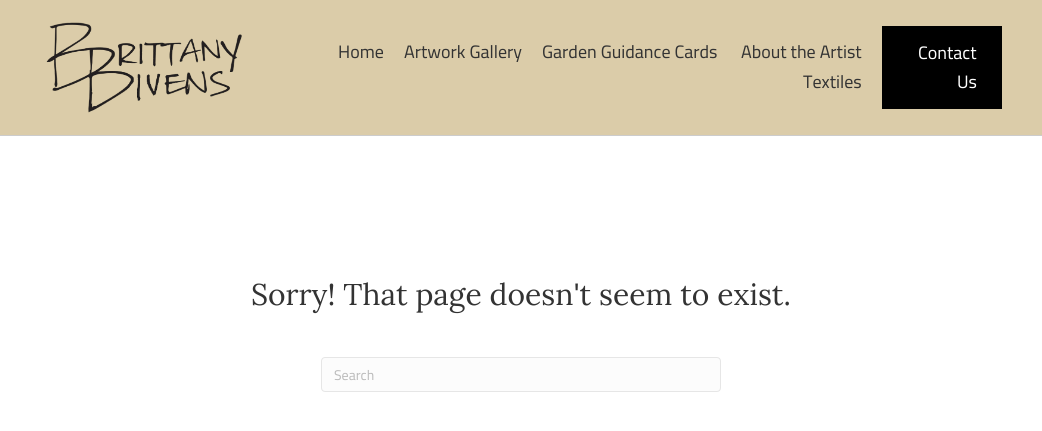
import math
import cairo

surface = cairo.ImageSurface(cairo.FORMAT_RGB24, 1042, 431)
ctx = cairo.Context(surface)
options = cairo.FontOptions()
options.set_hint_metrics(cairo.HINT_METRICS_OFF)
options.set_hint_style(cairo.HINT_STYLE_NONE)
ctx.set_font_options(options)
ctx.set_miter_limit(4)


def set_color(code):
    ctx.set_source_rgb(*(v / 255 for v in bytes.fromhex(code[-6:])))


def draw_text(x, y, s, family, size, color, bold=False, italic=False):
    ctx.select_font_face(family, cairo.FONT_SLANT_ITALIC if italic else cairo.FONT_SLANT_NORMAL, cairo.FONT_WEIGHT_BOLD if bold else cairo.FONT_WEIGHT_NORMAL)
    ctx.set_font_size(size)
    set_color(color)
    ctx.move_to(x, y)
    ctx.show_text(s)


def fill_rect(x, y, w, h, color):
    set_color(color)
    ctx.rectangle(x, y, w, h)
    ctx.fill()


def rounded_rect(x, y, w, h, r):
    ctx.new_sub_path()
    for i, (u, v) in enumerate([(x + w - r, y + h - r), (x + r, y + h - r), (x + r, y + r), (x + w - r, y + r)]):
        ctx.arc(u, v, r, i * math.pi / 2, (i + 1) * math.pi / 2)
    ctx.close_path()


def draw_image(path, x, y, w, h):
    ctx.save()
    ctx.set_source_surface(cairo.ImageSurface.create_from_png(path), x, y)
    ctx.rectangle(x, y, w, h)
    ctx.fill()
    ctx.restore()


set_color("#ffffff")
ctx.paint()
fill_rect(0, 0, 1042, 135, "#dbcca9")
draw_image("assets/img1.png", 46, 22, 196, 91)
draw_text(338, 58, "Home", "Cairo", 18, "#333333")
draw_text(404, 58, "Artwork Gallery", "Cairo", 18, "#333333")
draw_text(542, 58, "Garden Guidance Cards", "Cairo", 18, "#333333")
draw_text(741, 58, "About the Artist", "Cairo", 18, "#333333")
draw_text(803, 88, "Textiles", "Cairo", 18, "#333333")
fill_rect(882, 26, 120, 83, "#000000")
draw_text(918, 59, "Contact", "Cairo", 18, "#ffffff")
draw_text(957, 88, "Us", "Cairo", 18, "#ffffff")
fill_rect(0, 135, 1042, 1, "#cccccc")
draw_text(251, 305, "Sorry! That page doesn't seem to exist.", "Lora", 30, "#333333")
set_color("#fcfcfc")
rounded_rect(321.5, 357.5, 399, 34, 3.5)
ctx.fill_preserve()
set_color("#e6e6e6")
ctx.set_line_width(1)
ctx.stroke()
draw_text(334, 380, "Search", "Cairo", 14, "#bbbbbb")
surface.write_to_png("output.png")
